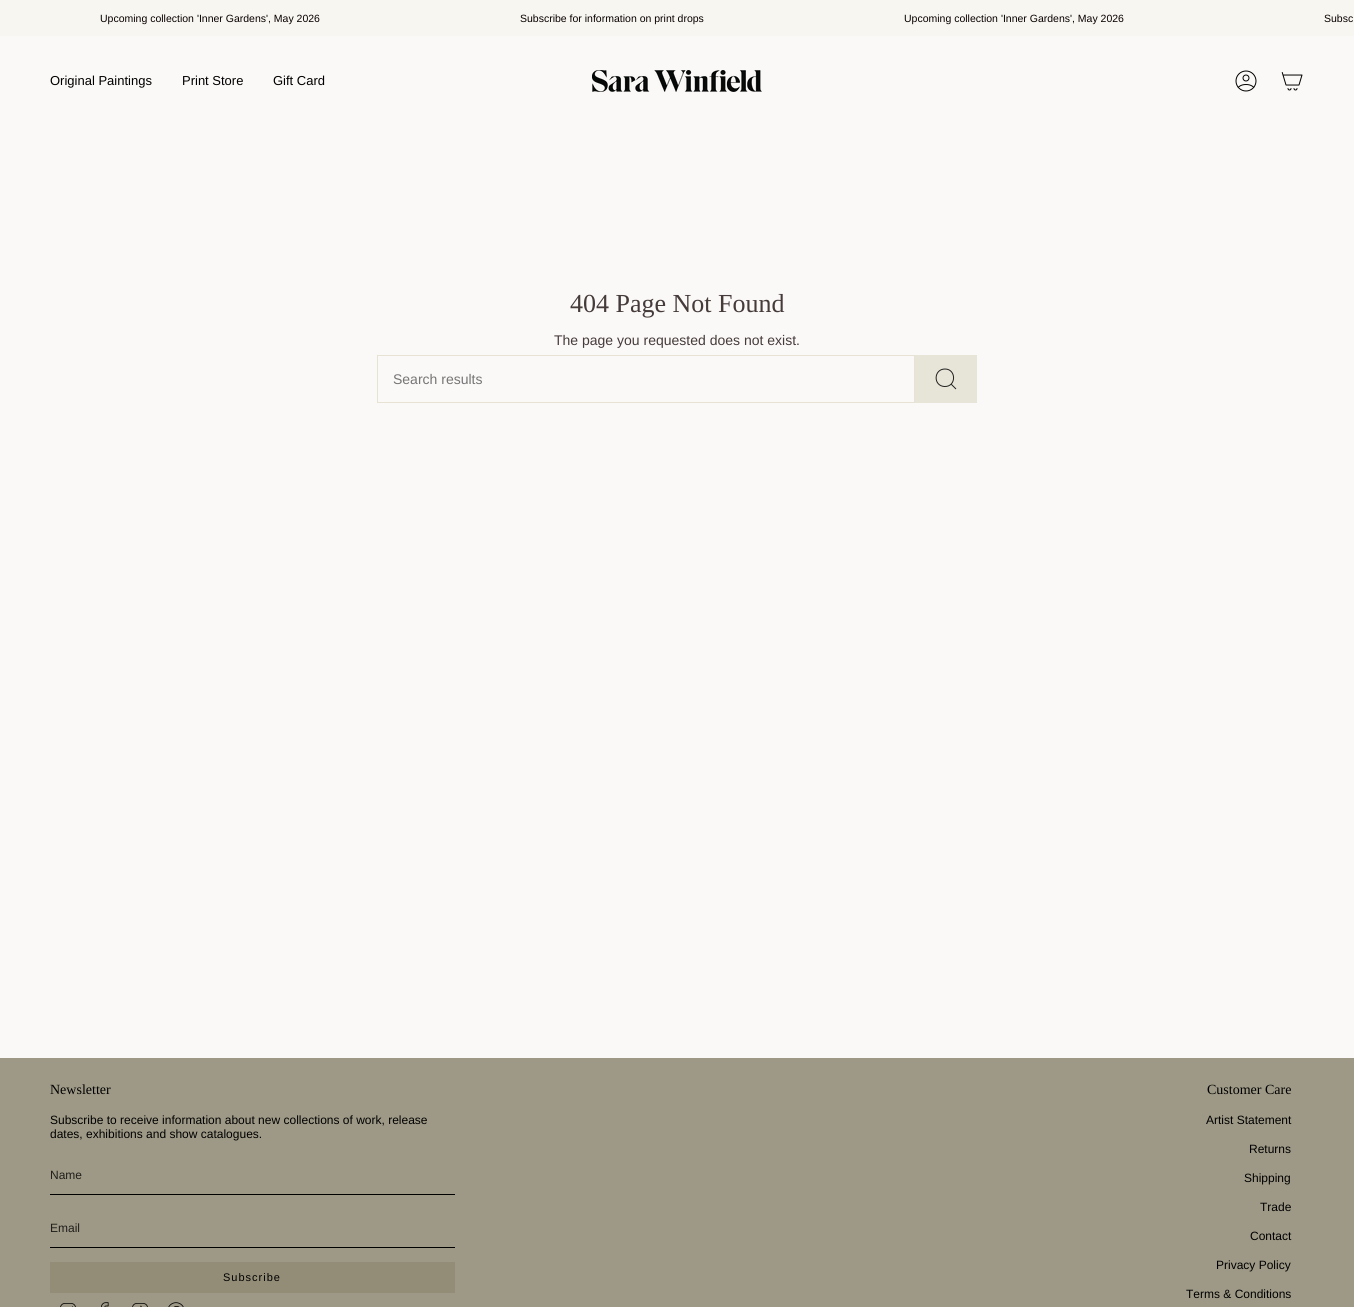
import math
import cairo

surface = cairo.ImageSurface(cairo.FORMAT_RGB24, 1354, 1307)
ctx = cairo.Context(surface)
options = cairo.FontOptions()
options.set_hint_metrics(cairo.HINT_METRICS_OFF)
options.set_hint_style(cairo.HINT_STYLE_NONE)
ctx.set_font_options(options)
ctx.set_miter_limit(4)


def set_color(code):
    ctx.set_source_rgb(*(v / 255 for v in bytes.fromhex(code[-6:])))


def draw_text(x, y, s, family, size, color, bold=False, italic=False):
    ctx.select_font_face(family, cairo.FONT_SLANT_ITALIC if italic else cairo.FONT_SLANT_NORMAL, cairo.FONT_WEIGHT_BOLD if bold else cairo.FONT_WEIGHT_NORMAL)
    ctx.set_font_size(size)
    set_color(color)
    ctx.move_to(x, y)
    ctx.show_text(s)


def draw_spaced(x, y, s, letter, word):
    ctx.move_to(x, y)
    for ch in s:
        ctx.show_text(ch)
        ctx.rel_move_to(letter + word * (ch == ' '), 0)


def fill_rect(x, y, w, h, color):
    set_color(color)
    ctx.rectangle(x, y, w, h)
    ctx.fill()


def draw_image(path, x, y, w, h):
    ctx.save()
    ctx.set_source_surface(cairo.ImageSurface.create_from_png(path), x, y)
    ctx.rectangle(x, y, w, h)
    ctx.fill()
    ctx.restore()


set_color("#fbf9f7")
ctx.paint()
fill_rect(0, 0, 1354, 36, "#f7f6f1")
draw_text(100, 22, "Upcoming collection 'Inner Gardens', May 2026", "Liberation Sans", 10.5, "#080000")
draw_text(520, 22, "Subscribe for information on print drops", "Liberation Sans", 10.5, "#080000")
draw_text(904, 22, "Upcoming collection 'Inner Gardens', May 2026", "Liberation Sans", 10.5, "#080000")
draw_text(1324, 22, "Subsc", "Liberation Sans", 10.5, "#080000")
draw_text(50, 85, "Original Paintings", "Liberation Sans", 13, "#000000")
draw_text(182, 85, "Print Store", "Liberation Sans", 13, "#000000")
draw_text(273, 85, "Gift Card", "Liberation Sans", 13, "#000000")
draw_image("assets/img1.png", 592, 70, 170, 22)
draw_image("assets/img2.png", 1235, 70, 22, 22)
draw_image("assets/img3.png", 1281, 72, 22, 19)
draw_text(570, 312, "404 Page Not Found", "Liberation Serif", 26, "#453b3b")
draw_text(554, 345, "The page you requested does not exist.", "Liberation Sans", 14, "#453b3b")
ctx.rectangle(377.5, 355.5, 537, 47)
set_color("#e6e3d5")
ctx.set_line_width(1)
ctx.stroke()
draw_text(393, 384, "Search results", "Liberation Sans", 14, "#757575")
fill_rect(915, 355, 62, 48, "#e7e5d7")
ctx.new_path()
ctx.move_to(945, 369)
ctx.curve_to(956.5, 369, 956.5, 387, 944.5, 386.5)
ctx.curve_to(933, 386, 933.5, 369, 945, 369)
ctx.close_path()
ctx.move_to(951, 384)
ctx.line_to(956, 389)
set_color("#212121")
ctx.stroke()
fill_rect(0, 1058, 1354, 249, "#9e9986")
draw_text(50, 1094, "Newsletter", "Liberation Serif", 14, "#000000")
draw_text(50, 1124, "Subscribe to receive information about new collections of work, release", "Liberation Sans", 12, "#000000")
draw_text(50, 1138, "dates, exhibitions and show catalogues.", "Liberation Sans", 12, "#000000")
fill_rect(50, 1194, 405, 1, "#000000")
draw_text(50, 1179, "Name", "Liberation Sans", 12, "#201f1b")
fill_rect(50, 1247, 405, 1, "#000000")
draw_text(50, 1232, "Email", "Liberation Sans", 12, "#201f1b")
fill_rect(50, 1262, 405, 31, "#938d77")
ctx.set_font_size(11)
set_color("#000000")
draw_spaced(223, 1281, "Subscribe", 1, 0)
draw_image("assets/img4.png", 60, 1303, 16, 4)
draw_image("assets/img5.png", 101, 1302, 8, 5)
draw_image("assets/img6.png", 132, 1303, 16, 4)
draw_image("assets/img7.png", 168, 1302, 16, 5)
draw_text(1207, 1094, "Customer Care", "Liberation Serif", 14, "#000000")
draw_text(1206, 1124, "Artist Statement", "Liberation Sans", 12, "#000000")
draw_text(1249, 1153, "Returns", "Liberation Sans", 12, "#000000")
draw_text(1244, 1182, "Shipping", "Liberation Sans", 12, "#000000")
draw_text(1260, 1211, "Trade", "Liberation Sans", 12, "#000000")
draw_text(1250, 1240, "Contact", "Liberation Sans", 12, "#000000")
draw_text(1216, 1269, "Privacy Policy", "Liberation Sans", 12, "#000000")
draw_text(1186, 1298, "Terms & Conditions", "Liberation Sans", 12, "#000000")
surface.write_to_png("output.png")
